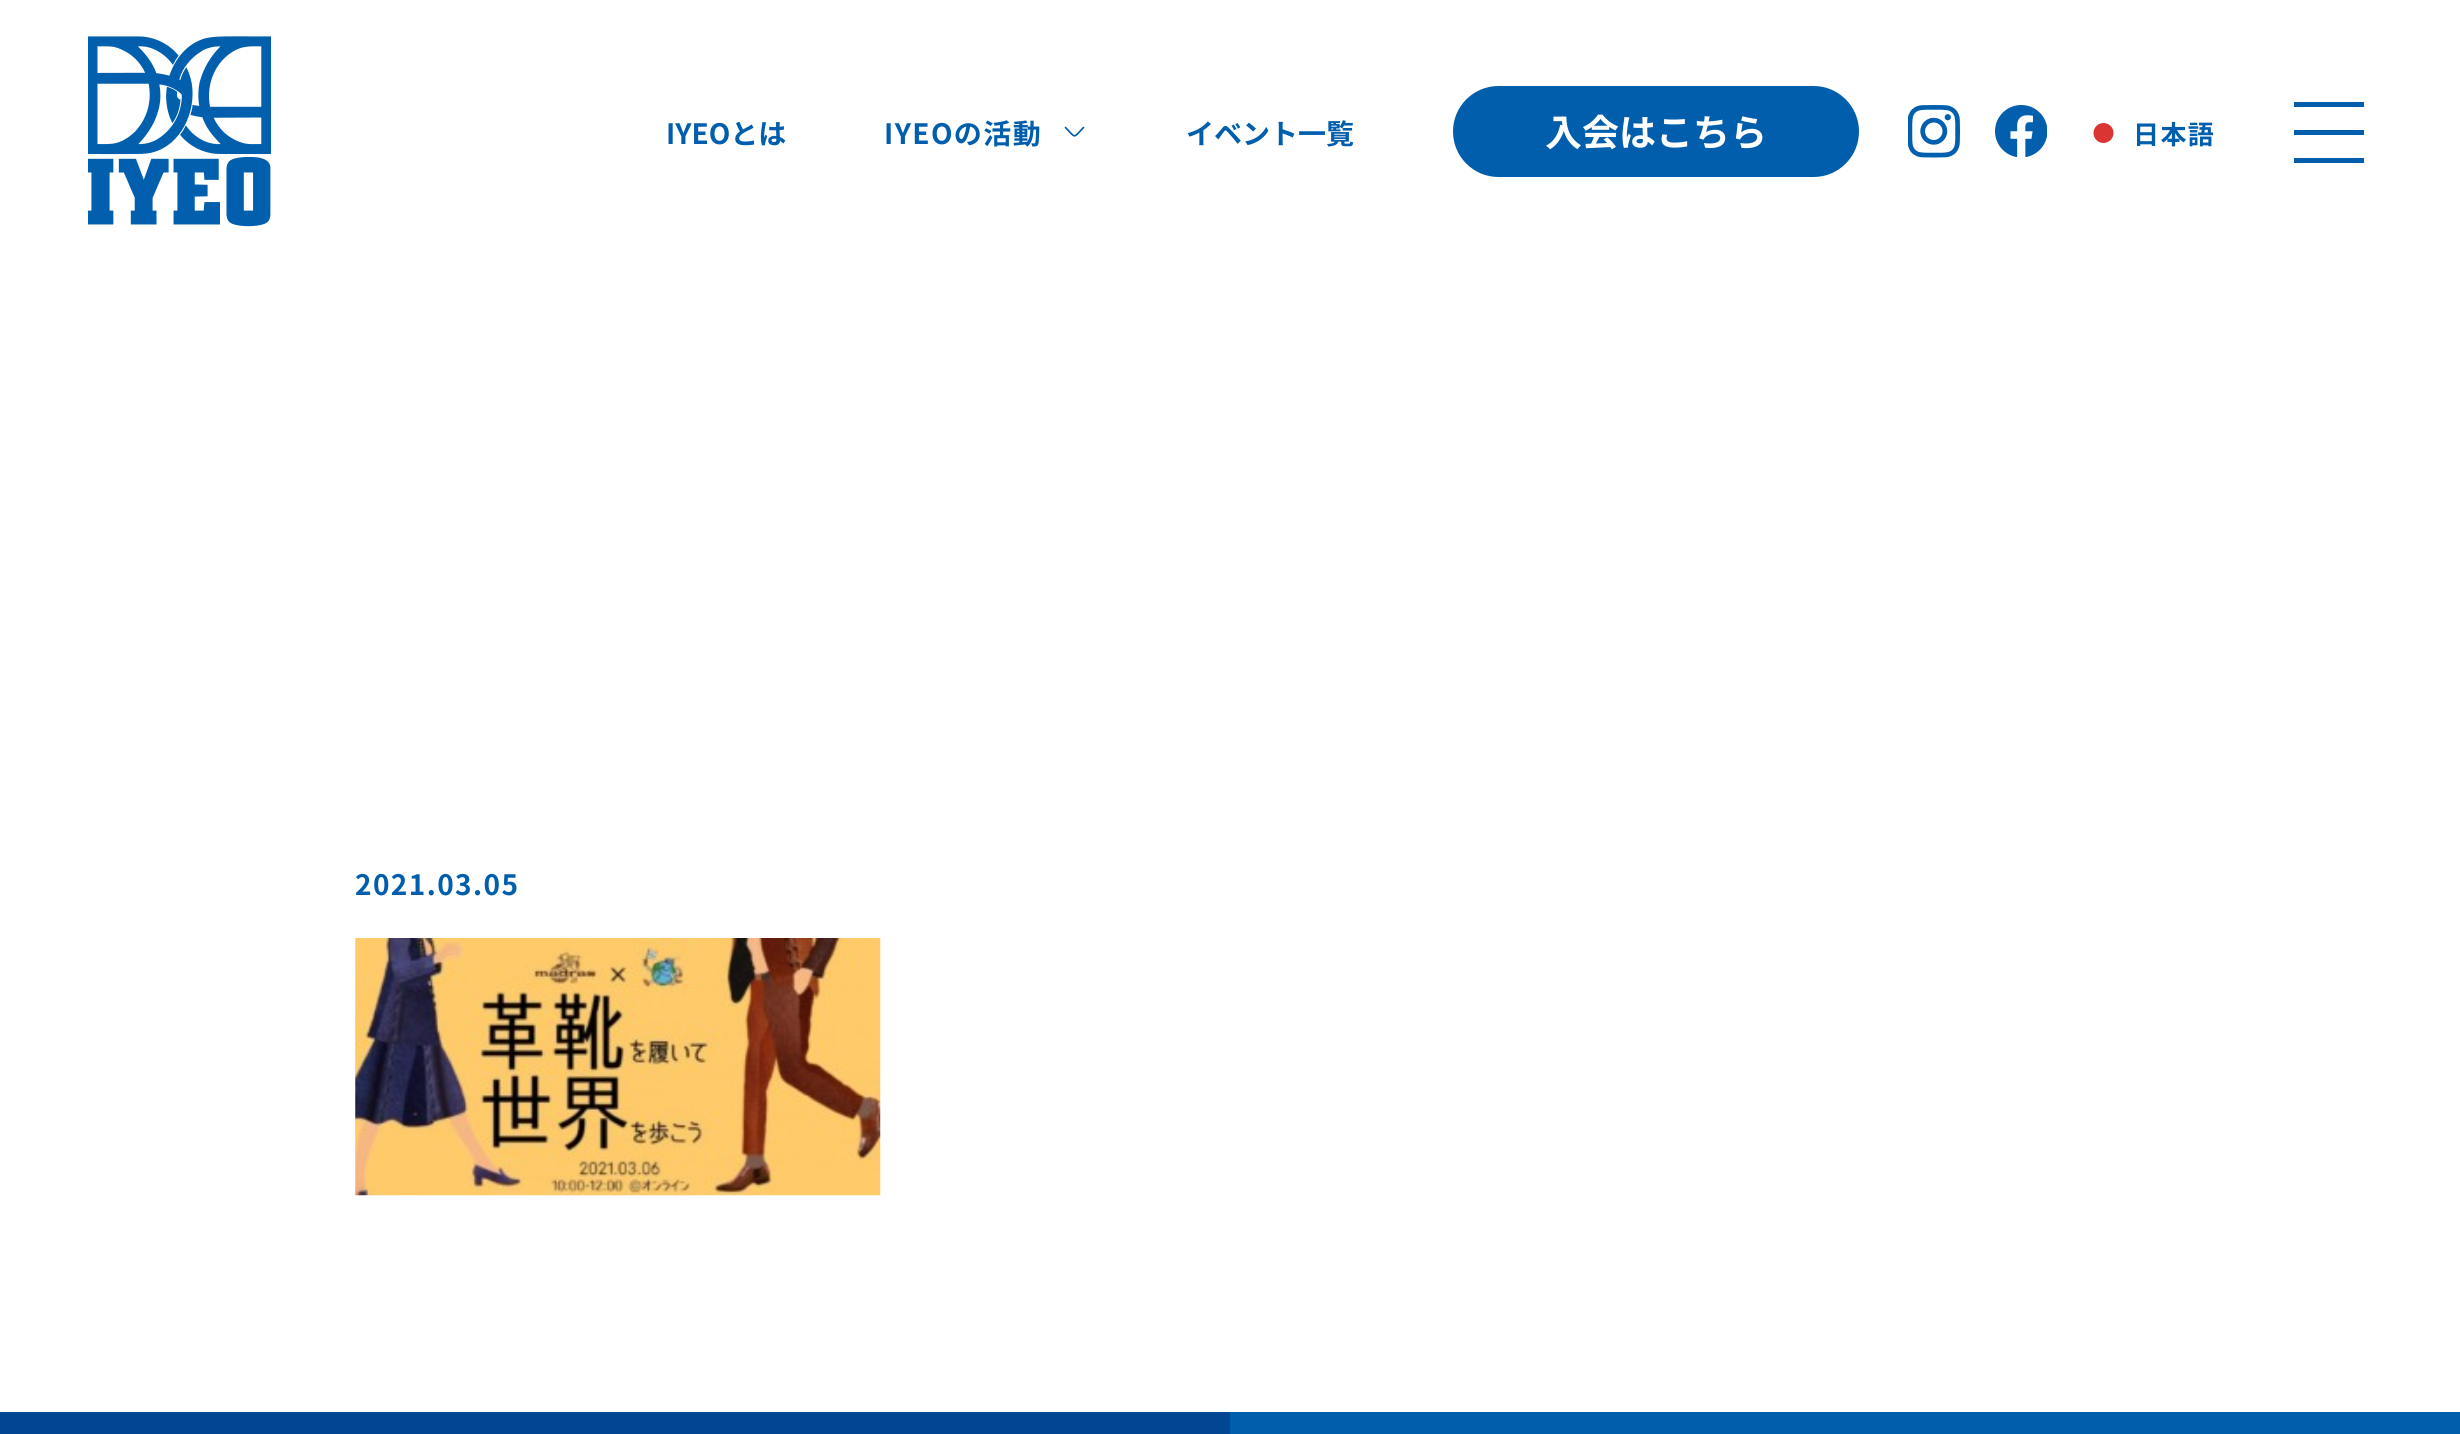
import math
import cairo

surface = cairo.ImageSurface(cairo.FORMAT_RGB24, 2460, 1434)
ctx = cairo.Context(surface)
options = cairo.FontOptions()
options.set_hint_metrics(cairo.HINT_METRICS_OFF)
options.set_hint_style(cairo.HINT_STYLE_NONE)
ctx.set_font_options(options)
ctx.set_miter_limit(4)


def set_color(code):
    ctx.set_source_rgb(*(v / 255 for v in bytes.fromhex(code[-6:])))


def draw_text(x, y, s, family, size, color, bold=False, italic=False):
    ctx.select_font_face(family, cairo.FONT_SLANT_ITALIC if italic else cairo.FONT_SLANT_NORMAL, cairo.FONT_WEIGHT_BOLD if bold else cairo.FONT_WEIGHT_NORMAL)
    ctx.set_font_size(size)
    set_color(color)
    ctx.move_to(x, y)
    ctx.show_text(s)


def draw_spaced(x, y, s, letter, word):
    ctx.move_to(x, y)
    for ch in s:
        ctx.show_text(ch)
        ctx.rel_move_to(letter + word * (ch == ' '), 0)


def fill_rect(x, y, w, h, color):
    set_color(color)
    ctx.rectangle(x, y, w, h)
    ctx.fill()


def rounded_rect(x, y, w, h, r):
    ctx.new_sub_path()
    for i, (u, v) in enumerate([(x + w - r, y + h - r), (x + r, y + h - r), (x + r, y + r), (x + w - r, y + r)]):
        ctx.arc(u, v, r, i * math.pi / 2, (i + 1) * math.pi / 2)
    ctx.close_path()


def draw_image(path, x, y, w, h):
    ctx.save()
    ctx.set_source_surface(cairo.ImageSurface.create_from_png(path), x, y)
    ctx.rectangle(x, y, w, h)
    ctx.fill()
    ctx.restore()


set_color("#ffffff")
ctx.paint()
draw_image("assets/img1.png", 88, 36, 183, 191)
draw_text(666, 144, "IYEOとは", "Noto Sans JP", 28, "#005ead", bold=True)
draw_spaced(884, 144, "IYEOの活動", 1.4, 0)
ctx.new_path()
ctx.move_to(1083.5, 127.5)
ctx.curve_to(1073, 138.5, 1076, 138.5, 1065.5, 127.5)
ctx.set_line_width(1.7)
ctx.set_line_cap(cairo.LINE_CAP_ROUND)
ctx.set_line_join(cairo.LINE_JOIN_ROUND)
ctx.stroke()
draw_text(1186, 144, "イベント一覧", "Noto Sans JP", 28, "#005ead", bold=True)
rounded_rect(1453, 86, 406, 91, 45.5)
ctx.fill()
draw_text(1545, 146, "入会はこちら", "Noto Sans JP", 37, "#ffffff", bold=True)
draw_image("assets/img2.png", 1908, 105, 52, 53)
draw_image("assets/img3.png", 1995, 105, 52, 52)
ctx.set_font_size(26)
set_color("#005ead")
draw_spaced(2133, 144, "日本語", 1.4, 0)
set_color("#dc3333")
ctx.new_path()
ctx.arc(2103.5, 133, 10, 0, 2 * math.pi)
ctx.fill()
fill_rect(2294, 102, 70, 5, "#005ead")
fill_rect(2294, 130, 70, 5, "#005ead")
fill_rect(2294, 158, 70, 5, "#005ead")
ctx.set_font_size(28)
draw_spaced(355, 895, "2021.03.05", 1.4, 0)
draw_image("assets/img4.png", 355, 938, 526, 258)
fill_rect(0, 1412, 1230, 22, "#004693")
fill_rect(1230, 1412, 1230, 22, "#005ead")
surface.write_to_png("output.png")
